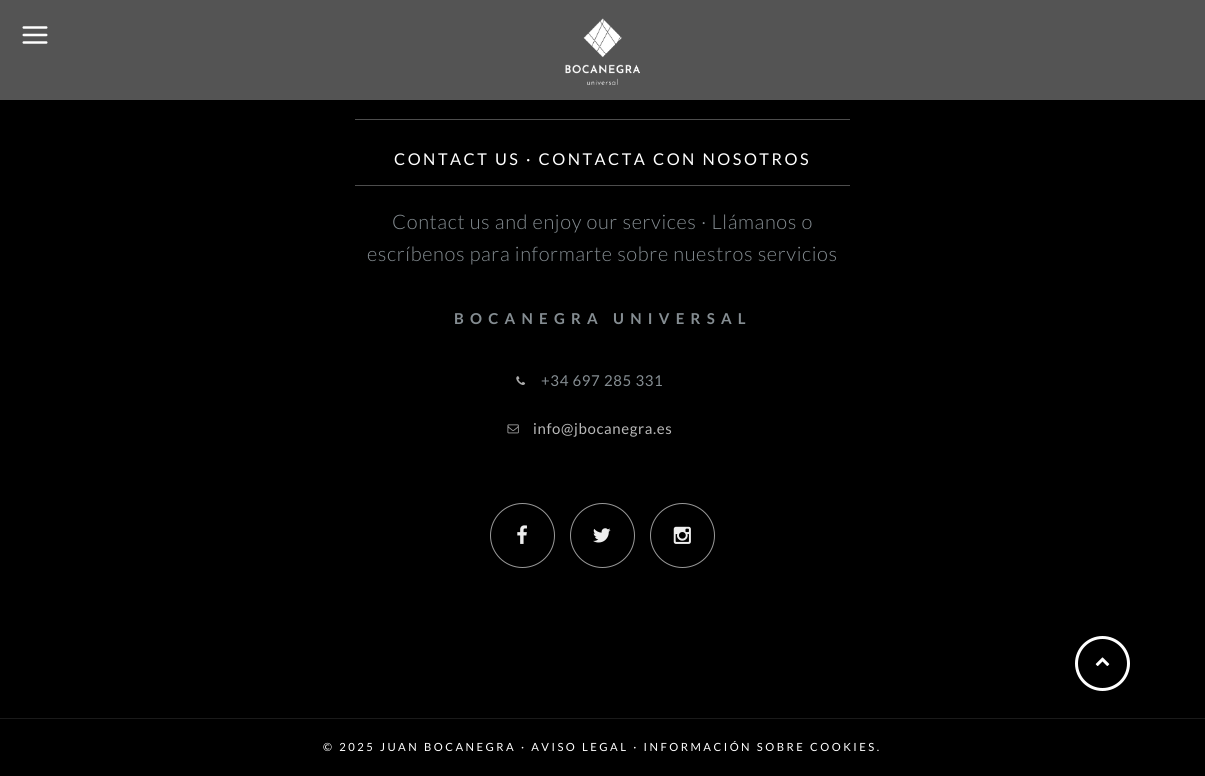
import math
import cairo

surface = cairo.ImageSurface(cairo.FORMAT_RGB24, 1205, 776)
ctx = cairo.Context(surface)
options = cairo.FontOptions()
options.set_hint_metrics(cairo.HINT_METRICS_OFF)
options.set_hint_style(cairo.HINT_STYLE_NONE)
ctx.set_font_options(options)
ctx.set_miter_limit(4)


def set_color(code):
    ctx.set_source_rgb(*(v / 255 for v in bytes.fromhex(code[-6:])))


def draw_spaced(x, y, s, letter, word):
    ctx.move_to(x, y)
    for ch in s:
        ctx.show_text(ch)
        ctx.rel_move_to(letter + word * (ch == ' '), 0)


def fill_rect(x, y, w, h, color):
    set_color(color)
    ctx.rectangle(x, y, w, h)
    ctx.fill()


def draw_image(path, x, y, w, h):
    ctx.save()
    ctx.set_source_surface(cairo.ImageSurface.create_from_png(path), x, y)
    ctx.rectangle(x, y, w, h)
    ctx.fill()
    ctx.restore()


set_color("#000000")
ctx.paint()
fill_rect(0, 0, 1205, 100, "#545454")
draw_image("assets/img1.png", 565, 18, 75, 67)
draw_image("assets/img2.png", 22, 26, 26, 18)
fill_rect(355, 119, 495, 1, "#4d4d4d")
fill_rect(355, 185, 495, 1, "#4d4d4d")
ctx.select_font_face("Lato")
ctx.set_font_size(16.25)
set_color("#ffffff")
draw_spaced(394, 165, "CONTACT US · CONTACTA CON NOSOTROS", 2.5, 0)
ctx.select_font_face("Lato Light")
ctx.set_font_size(20)
set_color("#858d92")
draw_spaced(392, 229, "Contact us and enjoy our services · Llámanos o", 0.62, 0)
draw_spaced(367, 261, "escríbenos para informarte sobre nuestros servicios", 0.62, 0)
ctx.select_font_face("Lato", cairo.FONT_SLANT_NORMAL, cairo.FONT_WEIGHT_BOLD)
ctx.set_font_size(15)
draw_spaced(454, 324, "BOCANEGRA UNIVERSAL", 6.25, 0)
draw_image("assets/img3.png", 516, 376, 10, 9)
ctx.select_font_face("Lato")
draw_spaced(541, 386, "+34 697 285 331", 0.62, 0)
draw_image("assets/img4.png", 507, 424, 12, 10)
set_color("#b8b8b8")
draw_spaced(533, 434, "info@jbocanegra.es", 0.62, 0)
ctx.new_path()
ctx.arc(522.5, 535.5, 32, 0, 2 * math.pi)
set_color("#999999")
ctx.set_line_width(1)
ctx.stroke()
draw_image("assets/img5.png", 517, 525, 10, 19)
ctx.arc(602.5, 535.5, 32, 0, 2 * math.pi)
ctx.stroke()
draw_image("assets/img6.png", 593, 528, 18, 15)
ctx.arc(682.5, 535.5, 32, 0, 2 * math.pi)
ctx.stroke()
draw_image("assets/img7.png", 673, 526, 18, 18)
ctx.arc(1102.5, 663.5, 26, 0, 2 * math.pi)
set_color("#ffffff")
ctx.set_line_width(3)
ctx.stroke()
draw_image("assets/img8.png", 1095, 657, 15, 9)
fill_rect(0, 718, 1205, 1, "#1a1a1a")
ctx.set_font_size(11.25)
set_color("#ffffff")
draw_spaced(323, 751, "© 2025 JUAN BOCANEGRA · AVISO LEGAL · INFORMACIÓN SOBRE COOKIES.", 2.5, 0)
surface.write_to_png("output.png")
